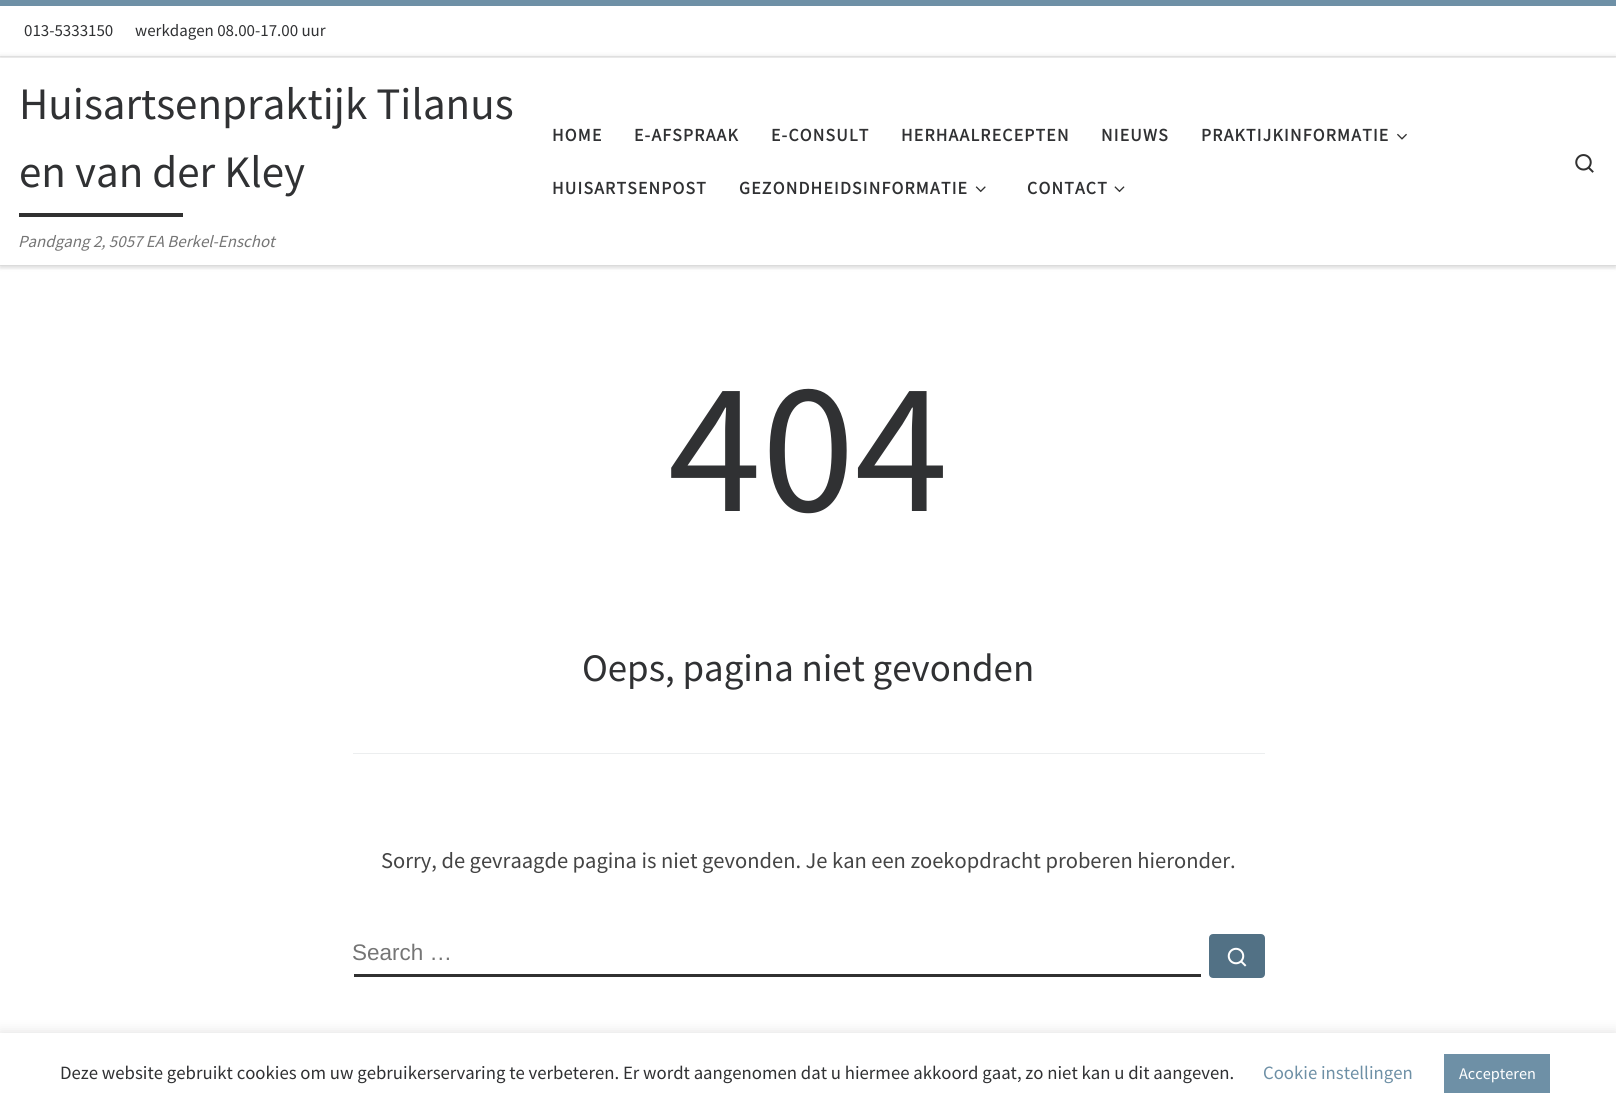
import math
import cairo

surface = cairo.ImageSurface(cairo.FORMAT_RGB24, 1616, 1113)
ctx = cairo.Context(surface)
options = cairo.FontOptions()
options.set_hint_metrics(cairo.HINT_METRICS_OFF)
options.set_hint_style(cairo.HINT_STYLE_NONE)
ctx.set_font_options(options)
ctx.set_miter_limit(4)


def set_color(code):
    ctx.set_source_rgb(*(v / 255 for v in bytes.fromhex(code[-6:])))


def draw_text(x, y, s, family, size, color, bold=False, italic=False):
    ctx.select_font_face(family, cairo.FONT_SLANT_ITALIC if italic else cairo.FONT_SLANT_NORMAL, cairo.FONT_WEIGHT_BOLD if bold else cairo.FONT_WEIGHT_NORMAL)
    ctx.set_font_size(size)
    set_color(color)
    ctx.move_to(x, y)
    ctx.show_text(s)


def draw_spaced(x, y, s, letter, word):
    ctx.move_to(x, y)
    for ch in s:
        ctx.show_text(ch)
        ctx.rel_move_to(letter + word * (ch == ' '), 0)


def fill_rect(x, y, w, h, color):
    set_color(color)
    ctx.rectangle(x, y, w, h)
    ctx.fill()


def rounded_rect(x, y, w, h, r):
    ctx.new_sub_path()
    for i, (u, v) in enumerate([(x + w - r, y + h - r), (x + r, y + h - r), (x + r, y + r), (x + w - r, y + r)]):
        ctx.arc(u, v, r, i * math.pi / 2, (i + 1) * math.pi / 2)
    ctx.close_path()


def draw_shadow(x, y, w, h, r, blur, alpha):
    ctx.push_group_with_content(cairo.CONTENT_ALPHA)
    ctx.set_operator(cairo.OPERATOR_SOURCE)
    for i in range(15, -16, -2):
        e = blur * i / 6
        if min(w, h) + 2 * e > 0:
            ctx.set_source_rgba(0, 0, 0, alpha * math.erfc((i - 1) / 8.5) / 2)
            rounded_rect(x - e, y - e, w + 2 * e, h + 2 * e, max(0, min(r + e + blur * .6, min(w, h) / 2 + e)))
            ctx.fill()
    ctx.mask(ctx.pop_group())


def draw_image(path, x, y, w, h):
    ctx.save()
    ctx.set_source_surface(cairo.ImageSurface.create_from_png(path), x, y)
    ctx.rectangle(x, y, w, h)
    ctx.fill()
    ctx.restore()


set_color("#ffffff")
ctx.paint()
ctx.save()
ctx.rectangle(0, 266, 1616, 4)
ctx.clip()
set_color("#666666")
draw_shadow(0, 3, 1616, 266, 0, 1, 0.08)
ctx.restore()
fill_rect(0, 0, 1616, 6, "#6e90a6")
fill_rect(0, 56, 1616, 1, "#ececec")
draw_text(24, 36, "013-5333150", "Source Sans Pro", 16.9, "#303133")
draw_text(135, 36, "werkdagen 08.00-17.00 uur", "Source Sans Pro", 16.9, "#303133")
fill_rect(0, 265, 1616, 1, "#efefef")
ctx.save()
ctx.set_fill_rule(cairo.FILL_RULE_EVEN_ODD)
ctx.new_path()
ctx.move_to(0, 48)
ctx.line_to(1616, 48)
ctx.line_to(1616, 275)
ctx.line_to(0, 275)
ctx.close_path()
ctx.move_to(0, 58)
ctx.line_to(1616, 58)
ctx.line_to(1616, 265)
ctx.line_to(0, 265)
ctx.close_path()
ctx.clip()
set_color("#000000")
draw_shadow(0, 58, 1616, 207, 0, 3, 0.2)
ctx.restore()
draw_text(19, 119, "Huisartsenpraktijk Tilanus", "Source Sans Pro", 45, "#303133")
draw_text(19, 187, "en van der Kley", "Source Sans Pro", 45, "#303133")
fill_rect(19, 213, 164, 4, "#313131")
draw_text(18, 247, "Pandgang 2, 5057 EA Berkel-Enschot", "Source Sans Pro", 16.9, "#757575", italic=True)
ctx.select_font_face("Source Sans Pro", cairo.FONT_SLANT_NORMAL, cairo.FONT_WEIGHT_BOLD)
ctx.set_font_size(17.75)
set_color("#303133")
draw_spaced(552, 141, "HOME", 1.25, 0)
draw_spaced(634, 141, "E-AFSPRAAK", 1.25, 0)
draw_spaced(771, 141, "E-CONSULT", 1.25, 0)
draw_spaced(901, 141, "HERHAALRECEPTEN", 1.25, 0)
draw_spaced(1101, 141, "NIEUWS", 1.25, 0)
draw_spaced(1201, 141, "PRAKTIJKINFORMATIE", 1.25, 0)
draw_image("assets/img1.png", 1397, 133, 10, 7)
draw_spaced(552, 194, "HUISARTSENPOST", 1.25, 0)
draw_spaced(739, 194, "GEZONDHEIDSINFORMATIE", 1.25, 0)
draw_image("assets/img2.png", 975, 186, 11, 7)
draw_spaced(1027, 194, "CONTACT", 1.25, 0)
draw_image("assets/img3.png", 1114, 186, 11, 7)
draw_image("assets/img4.png", 1575, 154, 19, 19)
draw_text(668, 511, "404", "Source Sans Pro", 188, "#303133")
draw_text(582, 681, "Oeps, pagina niet gevonden", "Source Sans Pro", 38.9, "#303133")
fill_rect(353, 753, 912, 1, "#eceeef")
draw_text(381, 868, "Sorry, de gevraagde pagina is niet gevonden. Je kan een zoekopdracht proberen hieronder.", "Source Sans Pro", 22.5, "#444444")
fill_rect(354, 974, 847, 3, "#313131")
draw_text(352, 960, "Search …", "Liberation Sans", 22.5, "#757575")
set_color("#527185")
rounded_rect(1210.5, 935.5, 53, 41, 2.5)
ctx.fill_preserve()
ctx.set_line_width(3)
ctx.stroke()
draw_image("assets/img5.png", 1227, 947, 20, 20)
set_color("#acabab")
draw_shadow(0, 1031, 1616, 82, 0, 6, 0.3)
fill_rect(0, 1033, 1616, 80, "#ffffff")
draw_text(60, 1079, "Deze website gebruikt cookies om uw gebruikerservaring te verbeteren. Er wordt aangenomen dat u hiermee akkoord gaat, zo niet kan u dit aangeven.", "Source Sans Pro", 18.75, "#303133")
draw_text(1263, 1079, "Cookie instellingen", "Source Sans Pro", 18.75, "#6e90a6")
fill_rect(1444, 1054, 106, 39, "#6e90a6")
draw_text(1459, 1079, "Accepteren", "Source Sans Pro", 16.25, "#ffffff")
surface.write_to_png("output.png")
